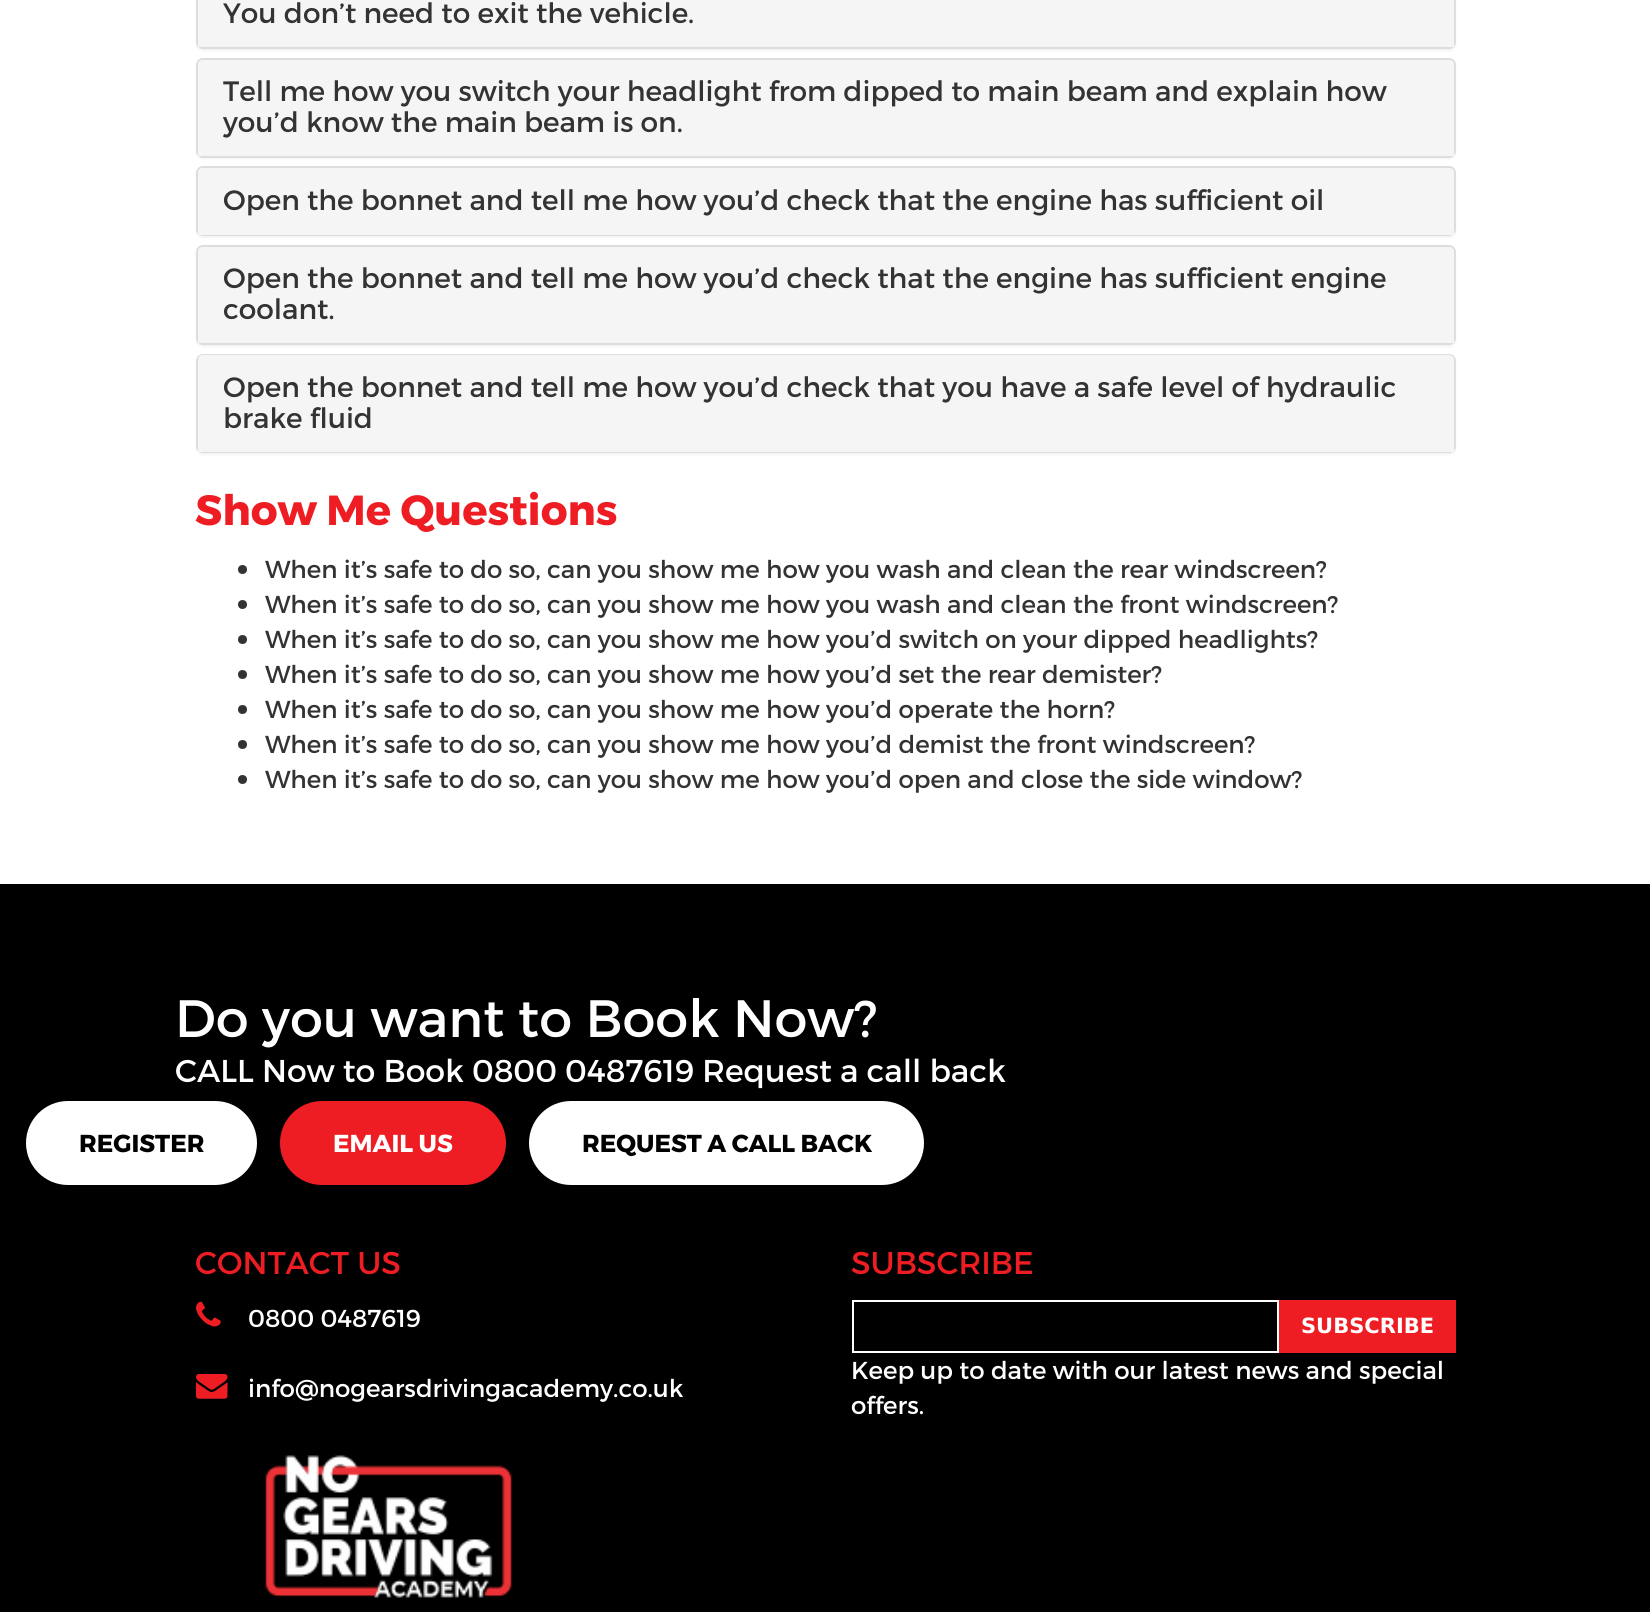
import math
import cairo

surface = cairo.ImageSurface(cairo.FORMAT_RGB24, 1650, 1612)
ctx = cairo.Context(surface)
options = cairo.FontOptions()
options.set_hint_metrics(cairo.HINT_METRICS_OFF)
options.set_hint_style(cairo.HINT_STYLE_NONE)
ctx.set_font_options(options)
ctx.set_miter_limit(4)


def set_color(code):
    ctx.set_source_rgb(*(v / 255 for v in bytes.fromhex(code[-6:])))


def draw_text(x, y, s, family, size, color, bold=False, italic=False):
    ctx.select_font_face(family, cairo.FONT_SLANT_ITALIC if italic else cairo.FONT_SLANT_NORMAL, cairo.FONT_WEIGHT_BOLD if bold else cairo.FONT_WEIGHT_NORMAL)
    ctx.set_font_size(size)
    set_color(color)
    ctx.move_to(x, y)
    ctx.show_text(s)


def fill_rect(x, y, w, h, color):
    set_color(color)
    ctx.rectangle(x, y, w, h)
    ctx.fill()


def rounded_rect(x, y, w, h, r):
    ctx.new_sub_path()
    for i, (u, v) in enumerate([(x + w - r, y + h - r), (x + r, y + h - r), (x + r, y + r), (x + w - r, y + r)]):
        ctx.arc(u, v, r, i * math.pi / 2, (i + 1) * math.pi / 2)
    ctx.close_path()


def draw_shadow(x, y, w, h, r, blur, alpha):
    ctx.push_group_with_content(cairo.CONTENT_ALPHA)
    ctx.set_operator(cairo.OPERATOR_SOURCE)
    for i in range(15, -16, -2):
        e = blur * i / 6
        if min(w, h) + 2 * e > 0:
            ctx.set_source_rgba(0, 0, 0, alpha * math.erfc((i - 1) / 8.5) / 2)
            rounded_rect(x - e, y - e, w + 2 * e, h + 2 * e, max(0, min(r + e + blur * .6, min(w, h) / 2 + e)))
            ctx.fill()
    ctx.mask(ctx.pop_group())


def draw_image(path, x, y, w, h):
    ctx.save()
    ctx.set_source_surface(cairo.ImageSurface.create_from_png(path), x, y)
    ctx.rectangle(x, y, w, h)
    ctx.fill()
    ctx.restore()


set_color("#ffffff")
ctx.paint()
set_color("#000000")
draw_shadow(196, -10, 1260, 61, 7, 1, 0.05)
rounded_rect(197, -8, 1258, 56, 6)
set_color("#dddddd")
ctx.stroke()
fill_rect(198, 0, 1256, 47, "#f5f5f5")
draw_text(223, 23, "You don’t need to exit the vehicle.", "Montserrat", 28, "#333333")
set_color("#000000")
draw_shadow(196, 60, 1260, 99, 7, 1, 0.05)
rounded_rect(197, 59, 1258, 98, 6)
set_color("#dddddd")
ctx.stroke()
set_color("#f5f5f5")
ctx.new_path()
ctx.move_to(203, 60)
ctx.line_to(1449, 60)
ctx.curve_to(1452, 60, 1454, 62, 1454, 65)
ctx.line_to(1454, 156)
ctx.line_to(198, 156)
ctx.line_to(198, 65)
ctx.curve_to(198, 62, 200, 60, 203, 60)
ctx.close_path()
ctx.fill()
draw_text(223, 101, "Tell me how you switch your headlight from dipped to main beam and explain how", "Montserrat", 28, "#333333")
draw_text(223, 132, "you’d know the main beam is on.", "Montserrat", 28, "#333333")
set_color("#000000")
draw_shadow(196, 168, 1260, 70, 7, 1, 0.05)
rounded_rect(197, 167, 1258, 68, 6)
set_color("#dddddd")
ctx.stroke()
set_color("#f5f5f5")
ctx.new_path()
ctx.move_to(203, 168)
ctx.line_to(1449, 168)
ctx.curve_to(1452, 168, 1454, 170, 1454, 173)
ctx.line_to(1454, 235)
ctx.line_to(198, 235)
ctx.line_to(198, 173)
ctx.curve_to(198, 170, 200, 168, 203, 168)
ctx.close_path()
ctx.fill()
draw_text(223, 210, "Open the bonnet and tell me how you’d check that the engine has sufficient oil", "Montserrat", 28, "#333333")
set_color("#000000")
draw_shadow(196, 247, 1260, 100, 7, 1, 0.05)
rounded_rect(197, 246, 1258, 98, 6)
set_color("#dddddd")
ctx.stroke()
set_color("#f5f5f5")
ctx.new_path()
ctx.move_to(203, 247)
ctx.line_to(1449, 247)
ctx.curve_to(1452, 247, 1454, 249, 1454, 252)
ctx.line_to(1454, 343)
ctx.line_to(198, 343)
ctx.line_to(198, 252)
ctx.curve_to(198, 249, 200, 247, 203, 247)
ctx.close_path()
ctx.fill()
draw_text(223, 288, "Open the bonnet and tell me how you’d check that the engine has sufficient engine", "Montserrat", 28, "#333333")
draw_text(223, 319, "coolant.", "Montserrat", 28, "#333333")
set_color("#000000")
draw_shadow(196, 355, 1260, 100, 7, 1, 0.05)
rounded_rect(197, 355, 1258, 97, 6)
set_color("#dddddd")
ctx.stroke()
set_color("#f5f5f5")
ctx.new_path()
ctx.move_to(203, 355)
ctx.line_to(1449, 355)
ctx.curve_to(1452, 355, 1454, 357, 1454, 360)
ctx.line_to(1454, 452)
ctx.line_to(198, 452)
ctx.line_to(198, 360)
ctx.curve_to(198, 357, 200, 355, 203, 355)
ctx.close_path()
ctx.fill()
draw_text(223, 397, "Open the bonnet and tell me how you’d check that you have a safe level of hydraulic", "Montserrat", 28, "#333333")
draw_text(223, 428, "brake fluid", "Montserrat", 28, "#333333")
draw_text(195, 525, "Show Me Questions", "Montserrat", 42, "#ee1d23", bold=True)
set_color("#333333")
ctx.new_path()
ctx.arc(242.5, 569.5, 4.5, 0, 2 * math.pi)
ctx.fill()
draw_text(265, 578, "When it’s safe to do so, can you show me how you wash and clean the rear windscreen?", "Montserrat", 24.5, "#333333")
ctx.new_path()
ctx.arc(242.5, 604.5, 4.5, 0, 2 * math.pi)
ctx.fill()
draw_text(265, 613, "When it’s safe to do so, can you show me how you wash and clean the front windscreen?", "Montserrat", 24.5, "#333333")
ctx.new_path()
ctx.arc(242.5, 639.5, 4.5, 0, 2 * math.pi)
ctx.fill()
draw_text(265, 648, "When it’s safe to do so, can you show me how you’d switch on your dipped headlights?", "Montserrat", 24.5, "#333333")
ctx.new_path()
ctx.arc(242.5, 674.5, 4.5, 0, 2 * math.pi)
ctx.fill()
draw_text(265, 683, "When it’s safe to do so, can you show me how you’d set the rear demister?", "Montserrat", 24.5, "#333333")
ctx.new_path()
ctx.arc(242.5, 709.5, 4.5, 0, 2 * math.pi)
ctx.fill()
draw_text(265, 718, "When it’s safe to do so, can you show me how you’d operate the horn?", "Montserrat", 24.5, "#333333")
ctx.new_path()
ctx.arc(242.5, 744.5, 4.5, 0, 2 * math.pi)
ctx.fill()
draw_text(265, 753, "When it’s safe to do so, can you show me how you’d demist the front windscreen?", "Montserrat", 24.5, "#333333")
ctx.new_path()
ctx.arc(242.5, 779.5, 4.5, 0, 2 * math.pi)
ctx.fill()
draw_text(265, 788, "When it’s safe to do so, can you show me how you’d open and close the side window?", "Montserrat", 24.5, "#333333")
fill_rect(0, 884, 1650, 728, "#000000")
draw_text(175, 1037, "Do you want to Book Now?", "Montserrat", 52.5, "#ffffff")
draw_text(175, 1082, "CALL Now to Book 0800 0487619 Request a call back", "Montserrat", 31.5, "#ffffff")
rounded_rect(26, 1101, 231, 84, 42)
ctx.fill()
draw_text(79, 1152, "REGISTER", "Montserrat", 24.5, "#000000", bold=True)
set_color("#ee1d23")
rounded_rect(280, 1101, 226, 84, 42)
ctx.fill()
draw_text(333, 1152, "EMAIL US", "Montserrat", 24.5, "#ffffff", bold=True)
rounded_rect(529, 1101, 395, 84, 42)
ctx.fill()
draw_text(582, 1152, "REQUEST A CALL BACK", "Montserrat", 24.5, "#000000", bold=True)
draw_text(195, 1274, "CONTACT US", "Montserrat", 31.5, "#ee1d23")
draw_image("assets/img1.png", 196, 1301, 25, 26)
draw_text(248, 1327, "0800 0487619", "Montserrat", 24.5, "#ffffff")
draw_image("assets/img2.png", 196, 1374, 32, 25)
draw_text(248, 1397, "info@nogearsdrivingacademy.co.uk", "Montserrat", 24.5, "#ffffff")
draw_text(851, 1274, "SUBSCRIBE", "Montserrat", 31.5, "#ee1d23")
ctx.rectangle(853, 1301, 425, 51)
set_color("#ffffff")
ctx.stroke()
fill_rect(1279, 1300, 177, 53, "#ee1d23")
draw_text(1301, 1333, "SUBSCRIBE", "DejaVu Sans", 21, "#ffffff", bold=True)
draw_text(851, 1379, "Keep up to date with our latest news and special", "Montserrat", 24.5, "#ffffff")
draw_text(851, 1414, "offers.", "Montserrat", 24.5, "#ffffff")
draw_image("assets/img3.png", 265, 1455, 247, 143)
surface.write_to_png("output.png")
